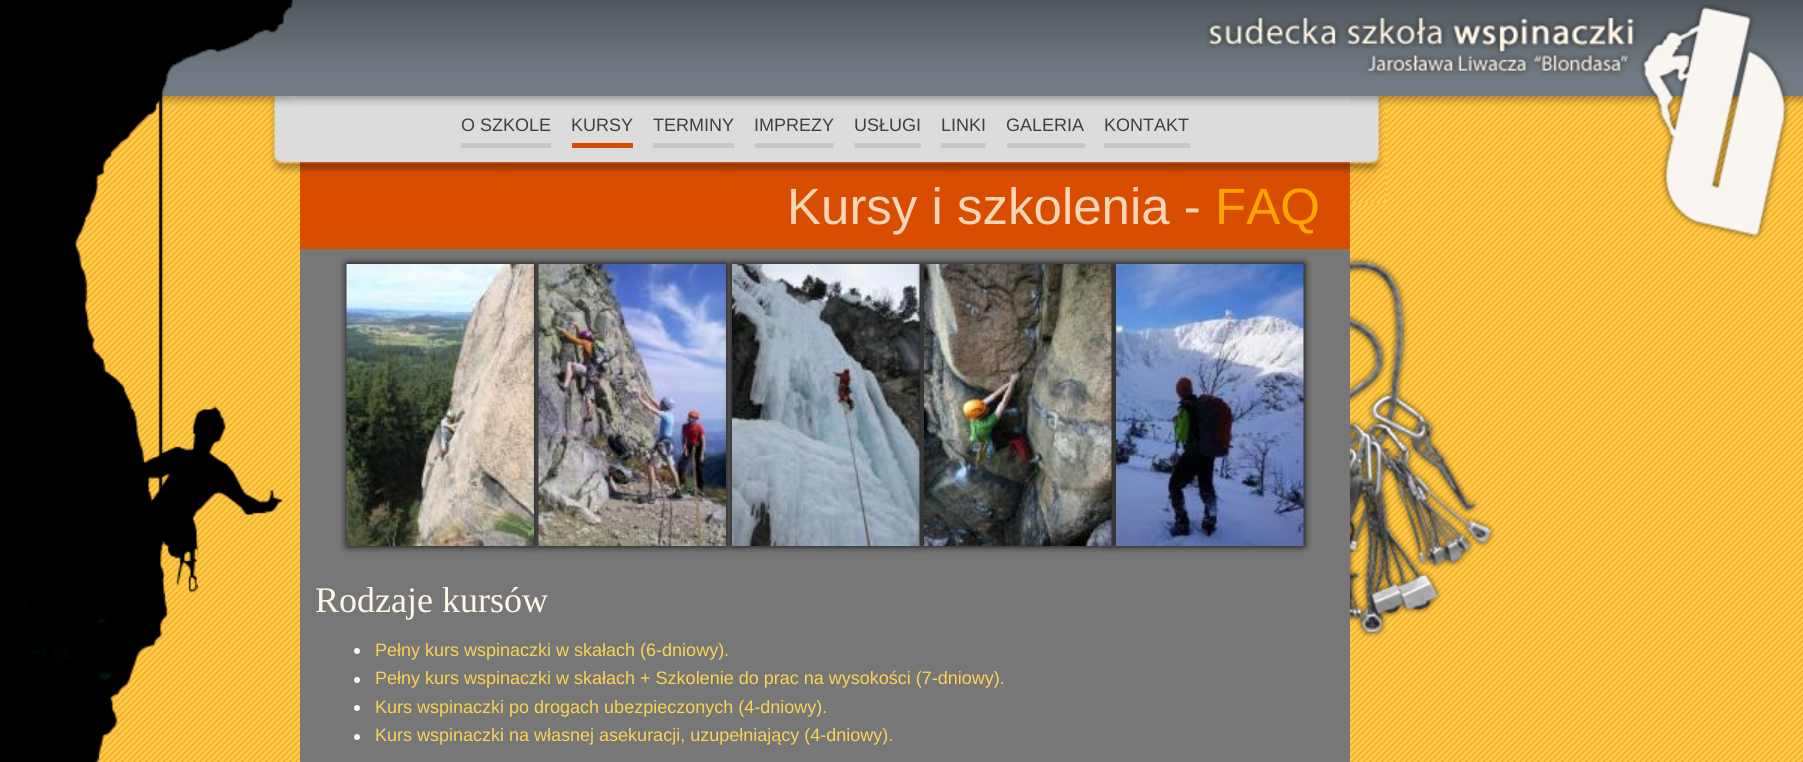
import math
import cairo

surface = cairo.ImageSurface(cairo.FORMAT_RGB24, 1803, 762)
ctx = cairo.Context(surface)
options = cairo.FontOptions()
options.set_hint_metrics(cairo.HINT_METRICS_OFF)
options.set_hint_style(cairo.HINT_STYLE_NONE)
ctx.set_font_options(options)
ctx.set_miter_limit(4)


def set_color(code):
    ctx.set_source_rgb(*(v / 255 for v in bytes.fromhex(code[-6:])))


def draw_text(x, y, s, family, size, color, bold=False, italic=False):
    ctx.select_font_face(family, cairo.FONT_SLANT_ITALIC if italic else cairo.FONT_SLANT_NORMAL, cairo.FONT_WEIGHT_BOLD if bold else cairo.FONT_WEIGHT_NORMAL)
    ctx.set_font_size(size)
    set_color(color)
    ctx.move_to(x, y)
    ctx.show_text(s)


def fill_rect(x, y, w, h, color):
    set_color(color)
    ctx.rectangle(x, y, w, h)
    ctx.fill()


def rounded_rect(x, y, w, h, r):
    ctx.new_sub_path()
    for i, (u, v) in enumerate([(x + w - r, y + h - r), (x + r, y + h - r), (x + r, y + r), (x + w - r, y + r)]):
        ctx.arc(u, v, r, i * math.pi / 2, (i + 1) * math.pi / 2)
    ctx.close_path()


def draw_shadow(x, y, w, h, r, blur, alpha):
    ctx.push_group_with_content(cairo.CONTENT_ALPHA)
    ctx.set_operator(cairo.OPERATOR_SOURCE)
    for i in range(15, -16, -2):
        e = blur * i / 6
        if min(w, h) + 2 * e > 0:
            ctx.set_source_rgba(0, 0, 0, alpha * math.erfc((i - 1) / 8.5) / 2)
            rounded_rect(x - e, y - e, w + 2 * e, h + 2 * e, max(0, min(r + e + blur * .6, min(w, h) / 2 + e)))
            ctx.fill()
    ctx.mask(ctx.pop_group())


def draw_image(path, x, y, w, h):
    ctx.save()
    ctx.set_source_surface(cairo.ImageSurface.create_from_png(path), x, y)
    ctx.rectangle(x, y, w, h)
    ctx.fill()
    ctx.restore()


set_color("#ffffff")
ctx.paint()
draw_image("assets/img1.png", 74, 246, 1729, 516)
draw_image("assets/img6.png", 160, 0, 1643, 96)
draw_image("assets/img7.png", 74, 96, 1729, 150)
draw_image("assets/img8.png", 267, 96, 33, 150)
draw_image("assets/img2.png", 0, 0, 293, 762)
draw_image("assets/img3.png", 1206, 14, 432, 62)
draw_image("assets/img4.png", 1638, 4, 152, 236)
draw_image("assets/img5.png", 14, 88, 269, 505)
fill_rect(300, 106, 1050, 56, "#dcdcdc")
draw_image("assets/img9.png", 300, 96, 1050, 10)
draw_text(461, 131, "O SZKOLE", "Liberation Sans", 18, "#3f3f3f")
fill_rect(461, 143, 90, 5, "#c7c7c7")
draw_text(571, 131, "KURSY", "Liberation Sans", 18, "#3f3f3f")
fill_rect(572, 143, 61, 5, "#d84d00")
draw_text(653, 131, "TERMINY", "Liberation Sans", 18, "#3f3f3f")
fill_rect(653, 143, 81, 5, "#c7c7c7")
draw_text(754, 131, "IMPREZY", "Liberation Sans", 18, "#3f3f3f")
fill_rect(755, 143, 79, 5, "#c7c7c7")
draw_text(854, 131, "USŁUGI", "Liberation Sans", 18, "#3f3f3f")
fill_rect(854, 143, 67, 5, "#c7c7c7")
draw_text(941, 131, "LINKI", "Liberation Sans", 18, "#3f3f3f")
fill_rect(941, 143, 45, 5, "#c7c7c7")
draw_text(1006, 131, "GALERIA", "Liberation Sans", 18, "#3f3f3f")
fill_rect(1007, 143, 78, 5, "#c7c7c7")
draw_text(1104, 131, "KONTAKT", "Liberation Sans", 18, "#3f3f3f")
fill_rect(1104, 143, 86, 5, "#c7c7c7")
draw_image("assets/img10.png", 1350, 96, 36, 107)
fill_rect(300, 175, 1050, 74, "#d84d00")
draw_image("assets/img11.png", 300, 162, 1050, 13)
draw_text(787, 224, "Kursy i szkolenia -", "Liberation Sans", 51, "#f7d5b7")
draw_text(1215, 224, "FAQ", "Liberation Sans", 51, "#ffa500")
fill_rect(300, 249, 1050, 513, "#777777")
set_color("#000000")
draw_shadow(347, 264, 187, 282, 0, 4, 1)
draw_image("assets/img12.png", 346, 264, 188, 282)
draw_shadow(539, 264, 187, 282, 0, 4, 1)
draw_image("assets/img13.png", 538, 264, 188, 282)
draw_shadow(732, 264, 188, 282, 0, 4, 1)
draw_image("assets/img14.png", 732, 264, 188, 282)
draw_shadow(924, 264, 188, 282, 0, 4, 1)
draw_image("assets/img15.png", 924, 264, 188, 282)
draw_shadow(1116, 264, 188, 282, 0, 4, 1)
draw_image("assets/img16.png", 1116, 264, 188, 282)
draw_text(315, 612, "Rodzaje kursów", "Liberation Serif", 36, "#fff7e8")
ctx.new_path()
ctx.arc(357, 651, 3, 0, 2 * math.pi)
ctx.fill()
draw_text(375, 656, "Pełny kurs wspinaczki w skałach (6-dniowy).", "Liberation Sans", 18, "#fcd351")
set_color("#fff7e8")
ctx.new_path()
ctx.arc(357, 680, 3, 0, 2 * math.pi)
ctx.fill()
draw_text(375, 684, "Pełny kurs wspinaczki w skałach + Szkolenie do prac na wysokości (7-dniowy).", "Liberation Sans", 18, "#fcd351")
set_color("#fff7e8")
ctx.new_path()
ctx.arc(357, 708, 3, 0, 2 * math.pi)
ctx.fill()
draw_text(375, 713, "Kurs wspinaczki po drogach ubezpieczonych (4-dniowy).", "Liberation Sans", 18, "#fcd351")
set_color("#fff7e8")
ctx.new_path()
ctx.arc(357, 737, 3, 0, 2 * math.pi)
ctx.fill()
draw_text(375, 741, "Kurs wspinaczki na własnej asekuracji, uzupełniający (4-dniowy).", "Liberation Sans", 18, "#fcd351")
draw_image("assets/img17.png", 1350, 257, 145, 381)
surface.write_to_png("output.png")
